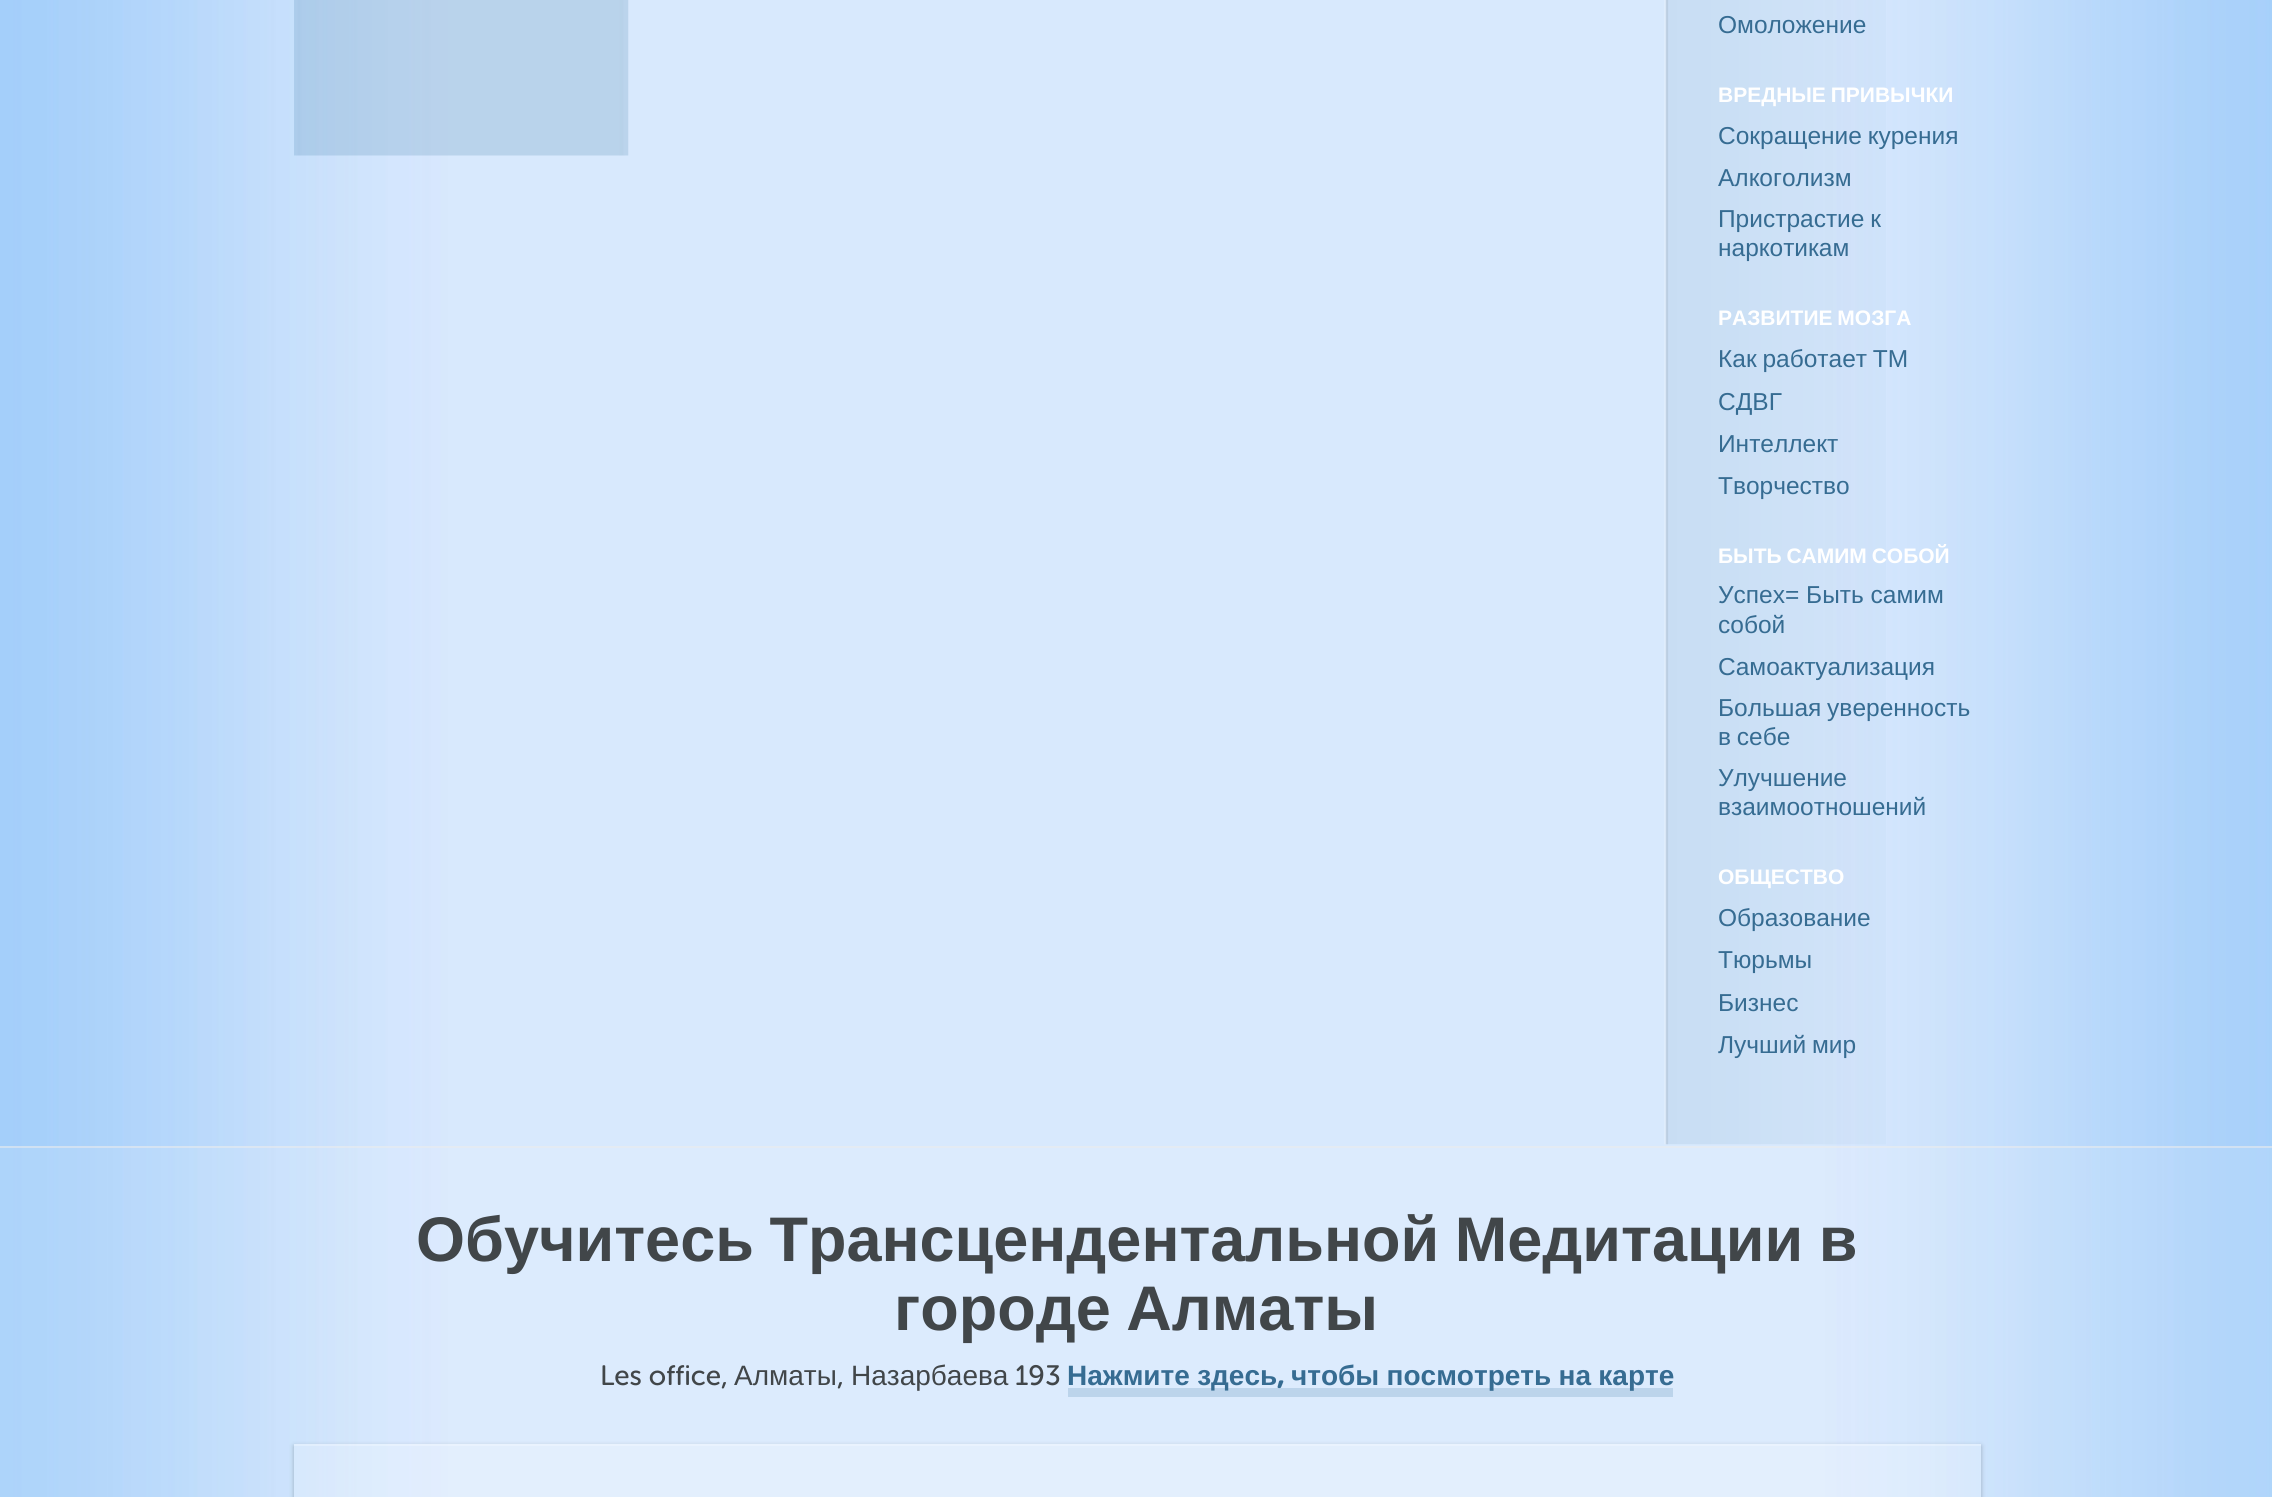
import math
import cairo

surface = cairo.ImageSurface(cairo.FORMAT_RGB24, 2272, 1497)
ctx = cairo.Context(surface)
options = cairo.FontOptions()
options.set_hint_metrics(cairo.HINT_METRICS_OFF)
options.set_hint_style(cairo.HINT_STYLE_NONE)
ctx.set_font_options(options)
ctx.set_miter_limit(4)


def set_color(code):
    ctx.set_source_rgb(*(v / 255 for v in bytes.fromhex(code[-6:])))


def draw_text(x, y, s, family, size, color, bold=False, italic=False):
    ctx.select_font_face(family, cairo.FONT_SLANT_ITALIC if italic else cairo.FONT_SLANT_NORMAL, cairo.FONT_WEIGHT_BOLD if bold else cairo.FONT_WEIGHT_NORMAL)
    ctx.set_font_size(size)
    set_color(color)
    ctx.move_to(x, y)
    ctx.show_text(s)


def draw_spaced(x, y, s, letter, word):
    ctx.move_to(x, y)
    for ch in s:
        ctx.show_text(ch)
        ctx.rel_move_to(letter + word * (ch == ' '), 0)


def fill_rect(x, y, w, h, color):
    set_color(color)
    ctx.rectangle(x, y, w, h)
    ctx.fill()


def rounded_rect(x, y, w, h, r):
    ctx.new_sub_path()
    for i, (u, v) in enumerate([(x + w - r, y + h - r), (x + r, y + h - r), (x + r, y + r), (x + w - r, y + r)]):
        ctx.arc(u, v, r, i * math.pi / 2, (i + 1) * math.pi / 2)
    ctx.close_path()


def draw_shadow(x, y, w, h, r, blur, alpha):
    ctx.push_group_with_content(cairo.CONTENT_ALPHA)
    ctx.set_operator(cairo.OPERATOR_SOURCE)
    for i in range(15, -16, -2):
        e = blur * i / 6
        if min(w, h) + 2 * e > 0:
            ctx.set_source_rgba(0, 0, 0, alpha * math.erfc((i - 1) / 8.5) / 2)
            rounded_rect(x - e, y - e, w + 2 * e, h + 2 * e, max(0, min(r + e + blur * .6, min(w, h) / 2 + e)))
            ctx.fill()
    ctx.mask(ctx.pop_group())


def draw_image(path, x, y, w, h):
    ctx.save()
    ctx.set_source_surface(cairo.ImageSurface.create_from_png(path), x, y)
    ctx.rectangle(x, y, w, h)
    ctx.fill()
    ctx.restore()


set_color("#ffffff")
ctx.paint()
draw_image("assets/img1.png", 0, 0, 2272, 1497)
ctx.set_source_rgba(0, 0, 0, 0.1)
ctx.rectangle(0, 1146, 2272, 2)
ctx.fill()
draw_image("assets/img2.png", 1664, 0, 222, 1145)
draw_image("assets/img3.png", 294, 0, 335, 156)
draw_text(1718, 33, "Омоложение", "Liberation Sans", 24.5, "#366c92")
ctx.select_font_face("Liberation Sans", cairo.FONT_SLANT_NORMAL, cairo.FONT_WEIGHT_BOLD)
ctx.set_font_size(21)
set_color("#ffffff")
draw_spaced(1718, 102, "ВРЕДНЫЕ ПРИВЫЧКИ", 0, -1)
ctx.select_font_face("Liberation Sans")
ctx.set_font_size(24.5)
set_color("#366c92")
draw_spaced(1718, 144, "Сокращение курения", 0, -1)
draw_text(1718, 186, "Алкоголизм", "Liberation Sans", 24.5, "#366c92")
draw_spaced(1718, 227, "Пристрастие к", 0, -1)
draw_text(1718, 256, "наркотикам", "Liberation Sans", 24.5, "#366c92")
ctx.select_font_face("Liberation Sans", cairo.FONT_SLANT_NORMAL, cairo.FONT_WEIGHT_BOLD)
ctx.set_font_size(21)
set_color("#ffffff")
draw_spaced(1718, 325, "РАЗВИТИЕ МОЗГА", 0, -1)
ctx.select_font_face("Liberation Sans")
ctx.set_font_size(24.5)
set_color("#366c92")
draw_spaced(1718, 367, "Как работает ТМ", 0, -1)
draw_text(1718, 410, "СДВГ", "Liberation Sans", 24.5, "#366c92")
draw_text(1718, 452, "Интеллект", "Liberation Sans", 24.5, "#366c92")
draw_text(1718, 494, "Творчество", "Liberation Sans", 24.5, "#366c92")
ctx.select_font_face("Liberation Sans", cairo.FONT_SLANT_NORMAL, cairo.FONT_WEIGHT_BOLD)
ctx.set_font_size(21)
set_color("#ffffff")
draw_spaced(1718, 563, "БЫТЬ САМИМ СОБОЙ", 0, -1)
draw_text(1718, 603, "Успех= Быть самим", "Liberation Sans", 24.5, "#366c92")
draw_text(1718, 633, "собой", "Liberation Sans", 24.5, "#366c92")
draw_text(1718, 675, "Самоактуализация", "Liberation Sans", 24.5, "#366c92")
draw_spaced(1718, 716, "Большая уверенность", 0, -1)
draw_spaced(1718, 745, "в себе", 0, -1)
draw_text(1718, 786, "Улучшение", "Liberation Sans", 24.5, "#366c92")
draw_text(1718, 815, "взаимоотношений", "Liberation Sans", 24.5, "#366c92")
draw_text(1718, 884, "ОБЩЕСТВО", "Liberation Sans", 21, "#ffffff", bold=True)
draw_text(1718, 926, "Образование", "Liberation Sans", 24.5, "#366c92")
draw_text(1718, 968, "Тюрьмы", "Liberation Sans", 24.5, "#366c92")
draw_text(1718, 1011, "Бизнес", "Liberation Sans", 24.5, "#366c92")
draw_spaced(1718, 1053, "Лучший мир", 0, -1)
ctx.set_source_rgba(1, 1, 1, 0.1)
ctx.rectangle(0, 1146, 2272, 351)
ctx.fill()
ctx.set_source_rgba(1, 1, 1, 0.5)
ctx.rectangle(0, 1146, 2272, 2)
ctx.fill()
ctx.select_font_face("Liberation Sans", cairo.FONT_SLANT_NORMAL, cairo.FONT_WEIGHT_BOLD)
ctx.set_font_size(63)
set_color("#414649")
draw_spaced(416, 1261, "Обучитесь Трансцендентальной Медитации в", 0, -2)
draw_spaced(894, 1330, "городе Алматы", 0, -2)
draw_text(600, 1385, "Les office,", "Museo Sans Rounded", 28, "#414649")
draw_text(734, 1385, "Алматы", "Liberation Sans", 28, "#414649")
draw_text(837, 1385, ",", "Museo Sans Rounded", 28, "#414649")
draw_text(851, 1385, "Назарбаева", "Liberation Sans", 28, "#414649")
draw_text(1015, 1385, "193", "Museo Sans Rounded", 28, "#414649")
fill_rect(1068, 1388, 605, 9, "#bcd4eb")
ctx.select_font_face("Liberation Sans", cairo.FONT_SLANT_NORMAL, cairo.FONT_WEIGHT_BOLD)
set_color("#366c92")
draw_spaced(1067, 1385, "Нажмите здесь", 0, -0.5)
draw_text(1277, 1385, ",", "Museo Sans Rounded", 28, "#366c92", bold=True)
ctx.select_font_face("Liberation Sans", cairo.FONT_SLANT_NORMAL, cairo.FONT_WEIGHT_BOLD)
draw_spaced(1291, 1385, "чтобы посмотреть на карте", 0, -0.5)
ctx.save()
ctx.set_fill_rule(cairo.FILL_RULE_EVEN_ODD)
ctx.new_path()
ctx.move_to(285, 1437)
ctx.line_to(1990, 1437)
ctx.line_to(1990, 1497)
ctx.line_to(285, 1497)
ctx.close_path()
ctx.move_to(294, 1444)
ctx.line_to(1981, 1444)
ctx.line_to(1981, 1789)
ctx.line_to(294, 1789)
ctx.close_path()
ctx.clip()
set_color("#000000")
draw_shadow(294, 1446, 1687, 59, 0, 2.5, 0.25)
ctx.restore()
ctx.set_source_rgba(1, 1, 1, 0.2)
ctx.rectangle(294, 1444, 1687, 53)
ctx.fill()
ctx.set_source_rgba(1, 1, 1, 0.25)
ctx.rectangle(294, 1444, 1687, 2)
ctx.fill()
surface.write_to_png("output.png")
